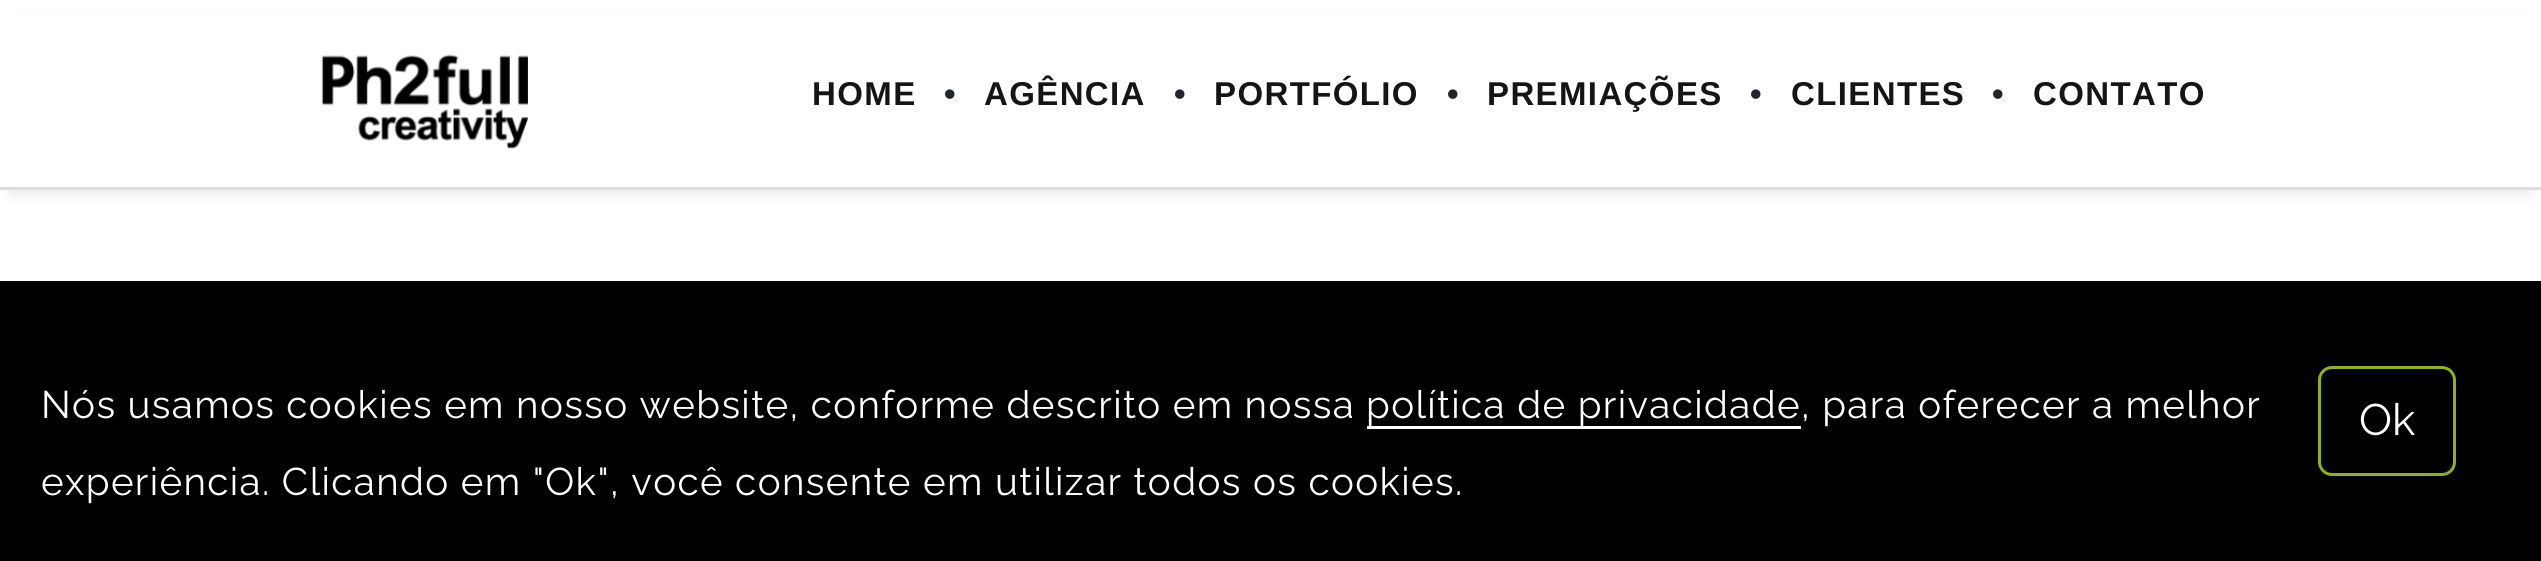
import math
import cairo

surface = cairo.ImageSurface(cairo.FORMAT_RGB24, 2541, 561)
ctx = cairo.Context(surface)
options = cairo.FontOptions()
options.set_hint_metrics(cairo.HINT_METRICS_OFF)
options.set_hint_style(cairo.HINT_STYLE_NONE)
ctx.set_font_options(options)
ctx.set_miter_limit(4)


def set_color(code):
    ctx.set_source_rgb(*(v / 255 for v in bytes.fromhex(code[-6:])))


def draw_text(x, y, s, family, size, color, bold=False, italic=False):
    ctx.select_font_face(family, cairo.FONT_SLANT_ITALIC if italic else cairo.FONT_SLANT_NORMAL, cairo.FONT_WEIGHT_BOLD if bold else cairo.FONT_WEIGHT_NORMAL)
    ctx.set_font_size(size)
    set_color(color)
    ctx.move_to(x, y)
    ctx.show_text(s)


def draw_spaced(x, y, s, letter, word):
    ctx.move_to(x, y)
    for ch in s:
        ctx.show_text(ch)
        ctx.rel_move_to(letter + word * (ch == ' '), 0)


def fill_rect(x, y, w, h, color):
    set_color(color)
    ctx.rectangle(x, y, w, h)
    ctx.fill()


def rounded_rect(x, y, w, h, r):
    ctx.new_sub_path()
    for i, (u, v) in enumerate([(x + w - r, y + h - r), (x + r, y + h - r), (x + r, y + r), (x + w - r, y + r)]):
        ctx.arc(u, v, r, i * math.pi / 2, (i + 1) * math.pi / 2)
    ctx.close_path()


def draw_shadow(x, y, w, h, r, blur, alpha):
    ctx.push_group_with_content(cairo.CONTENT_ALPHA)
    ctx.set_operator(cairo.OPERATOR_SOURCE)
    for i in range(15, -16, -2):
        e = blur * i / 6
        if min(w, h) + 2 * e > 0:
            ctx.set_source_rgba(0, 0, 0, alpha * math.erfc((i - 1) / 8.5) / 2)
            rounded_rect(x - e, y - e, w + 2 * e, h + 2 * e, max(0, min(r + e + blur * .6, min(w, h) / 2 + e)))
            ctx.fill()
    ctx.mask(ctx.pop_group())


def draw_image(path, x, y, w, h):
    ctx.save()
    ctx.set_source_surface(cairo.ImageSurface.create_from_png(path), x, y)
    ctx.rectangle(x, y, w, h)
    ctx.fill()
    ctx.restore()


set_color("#ffffff")
ctx.paint()
set_color("#000000")
draw_shadow(11, 25, 2519, 168, 0, 7, 0.1)
fill_rect(2, 16, 2537, 171, "#ffffff")
fill_rect(0, 187, 2541, 3, "#dddddd")
draw_image("assets/img1.png", 321, 54, 207, 95)
ctx.select_font_face("Liberation Sans", cairo.FONT_SLANT_NORMAL, cairo.FONT_WEIGHT_BOLD)
ctx.set_font_size(33)
set_color("#151515")
draw_spaced(812, 105, "HOME", 1.38, 0)
set_color("#212529")
draw_spaced(944, 105, "•", 1.38, 0)
set_color("#151515")
draw_spaced(984, 105, "AGÊNCIA", 1.38, 0)
set_color("#212529")
draw_spaced(1174, 105, "•", 1.38, 0)
set_color("#151515")
draw_spaced(1214, 105, "PORTFÓLIO", 1.38, 0)
set_color("#212529")
draw_spaced(1447, 105, "•", 1.38, 0)
set_color("#151515")
draw_spaced(1487, 105, "PREMIAÇÕES", 1.38, 0)
set_color("#212529")
draw_spaced(1750, 105, "•", 1.38, 0)
set_color("#151515")
draw_spaced(1791, 105, "CLIENTES", 1.38, 0)
set_color("#212529")
draw_spaced(1992, 105, "•", 1.38, 0)
set_color("#151515")
draw_spaced(2033, 105, "CONTATO", 1.38, 0)
fill_rect(0, 281, 2541, 280, "#000000")
ctx.select_font_face("Raleway")
ctx.set_font_size(38.5)
set_color("#ffffff")
draw_spaced(41, 418, "Nós usamos cookies em nosso website, conforme descrito em nossa", 1.38, 0)
fill_rect(1367, 426, 434, 3, "#ffffff")
draw_spaced(1366, 418, "política de privacidade, para oferecer a melhor", 1.38, 0)
draw_spaced(41, 495, "experiência. Clicando em \"Ok\", você consente em utilizar todos os cookies.", 1.38, 0)
rounded_rect(2319.5, 367.5, 135, 107, 12.5)
set_color("#8cb31c")
ctx.set_line_width(3)
ctx.stroke()
draw_text(2359, 435, "Ok", "Raleway", 44, "#ffffff")
surface.write_to_png("output.png")
